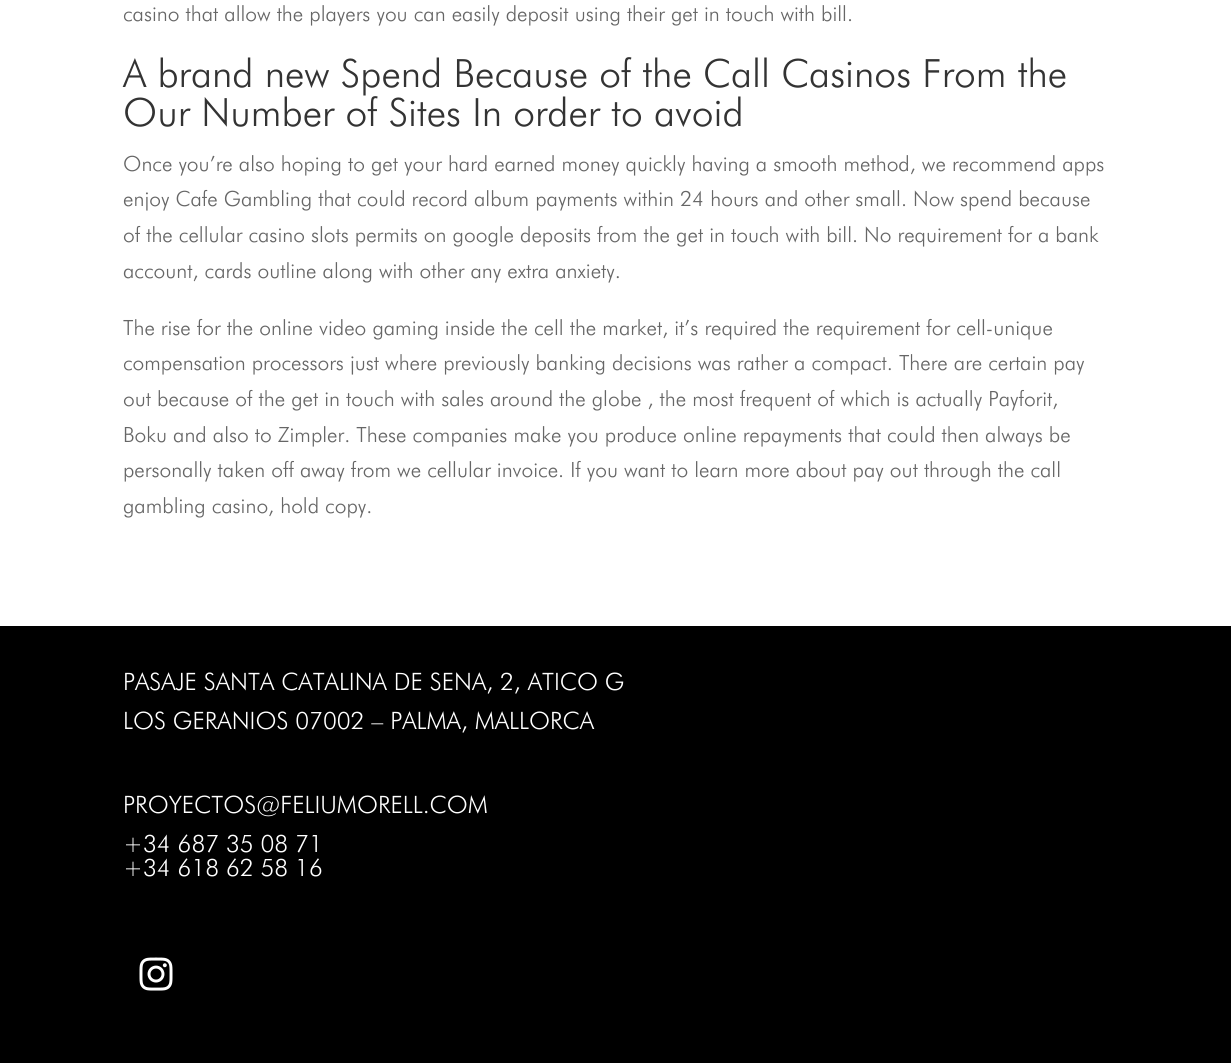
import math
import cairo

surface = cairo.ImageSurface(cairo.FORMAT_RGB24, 1231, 1063)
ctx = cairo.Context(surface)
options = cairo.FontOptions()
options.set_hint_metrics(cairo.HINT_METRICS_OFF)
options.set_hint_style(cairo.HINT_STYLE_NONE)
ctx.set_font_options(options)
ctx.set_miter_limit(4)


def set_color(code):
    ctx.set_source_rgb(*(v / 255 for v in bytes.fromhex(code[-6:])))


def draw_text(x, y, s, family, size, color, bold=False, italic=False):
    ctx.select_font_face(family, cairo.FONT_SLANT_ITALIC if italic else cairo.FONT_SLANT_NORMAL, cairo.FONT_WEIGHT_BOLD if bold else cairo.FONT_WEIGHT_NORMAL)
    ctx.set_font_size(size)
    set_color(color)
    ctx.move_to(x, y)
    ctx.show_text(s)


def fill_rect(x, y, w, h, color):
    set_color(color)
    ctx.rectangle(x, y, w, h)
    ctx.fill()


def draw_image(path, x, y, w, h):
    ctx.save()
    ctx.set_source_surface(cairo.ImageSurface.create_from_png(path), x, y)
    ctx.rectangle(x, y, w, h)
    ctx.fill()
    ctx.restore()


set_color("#ffffff")
ctx.paint()
draw_text(123, 21, "casino that allow the players you can easily deposit using their get in touch with bill.", "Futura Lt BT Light", 21, "#666666")
draw_text(123, 87, "A brand new Spend Because of the Call Casinos From the", "Futura Lt BT Light", 39, "#333333")
draw_text(123, 126, "Our Number of Sites In order to avoid", "Futura Lt BT Light", 39, "#333333")
draw_text(123, 171, "Once you’re also hoping to get your hard earned money quickly having a smooth method, we recommend apps", "Futura Lt BT Light", 21, "#666666")
draw_text(123, 206, "enjoy Cafe Gambling that could record album payments within 24 hours and other small. Now spend because", "Futura Lt BT Light", 21, "#666666")
draw_text(123, 242, "of the cellular casino slots permits on google deposits from the get in touch with bill. No requirement for a bank", "Futura Lt BT Light", 21, "#666666")
draw_text(123, 278, "account, cards outline along with other any extra anxiety.", "Futura Lt BT Light", 21, "#666666")
draw_text(123, 335, "The rise for the online video gaming inside the cell the market, it’s required the requirement for cell-unique", "Futura Lt BT Light", 21, "#666666")
draw_text(123, 370, "compensation processors just where previously banking decisions was rather a compact. There are certain pay", "Futura Lt BT Light", 21, "#666666")
draw_text(123, 406, "out because of the get in touch with sales around the globe , the most frequent of which is actually Payforit,", "Futura Lt BT Light", 21, "#666666")
draw_text(123, 442, "Boku and also to Zimpler. These companies make you produce online repayments that could then always be", "Futura Lt BT Light", 21, "#666666")
draw_text(123, 477, "personally taken off away from we cellular invoice. If you want to learn more about pay out through the call", "Futura Lt BT Light", 21, "#666666")
draw_text(123, 513, "gambling casino, hold copy.", "Futura Lt BT Light", 21, "#666666")
fill_rect(0, 626, 1231, 437, "#000000")
draw_text(123, 690, "PASAJE SANTA CATALINA DE SENA, 2, ATICO G", "Futura Lt BT Light", 24, "#ffffff")
draw_text(123, 729, "LOS GERANIOS 07002 – PALMA, MALLORCA", "Futura Lt BT Light", 24, "#ffffff")
draw_text(123, 813, "PROYECTOS@FELIUMORELL.COM", "Futura Lt BT Light", 24, "#ffffff")
draw_text(123, 852, "+34 687 35 08 71", "Futura Lt BT Light", 24, "#ffffff")
draw_text(123, 876, "+34 618 62 58 16", "Futura Lt BT Light", 24, "#ffffff")
draw_image("assets/img1.png", 139, 957, 34, 34)
surface.write_to_png("output.png")
